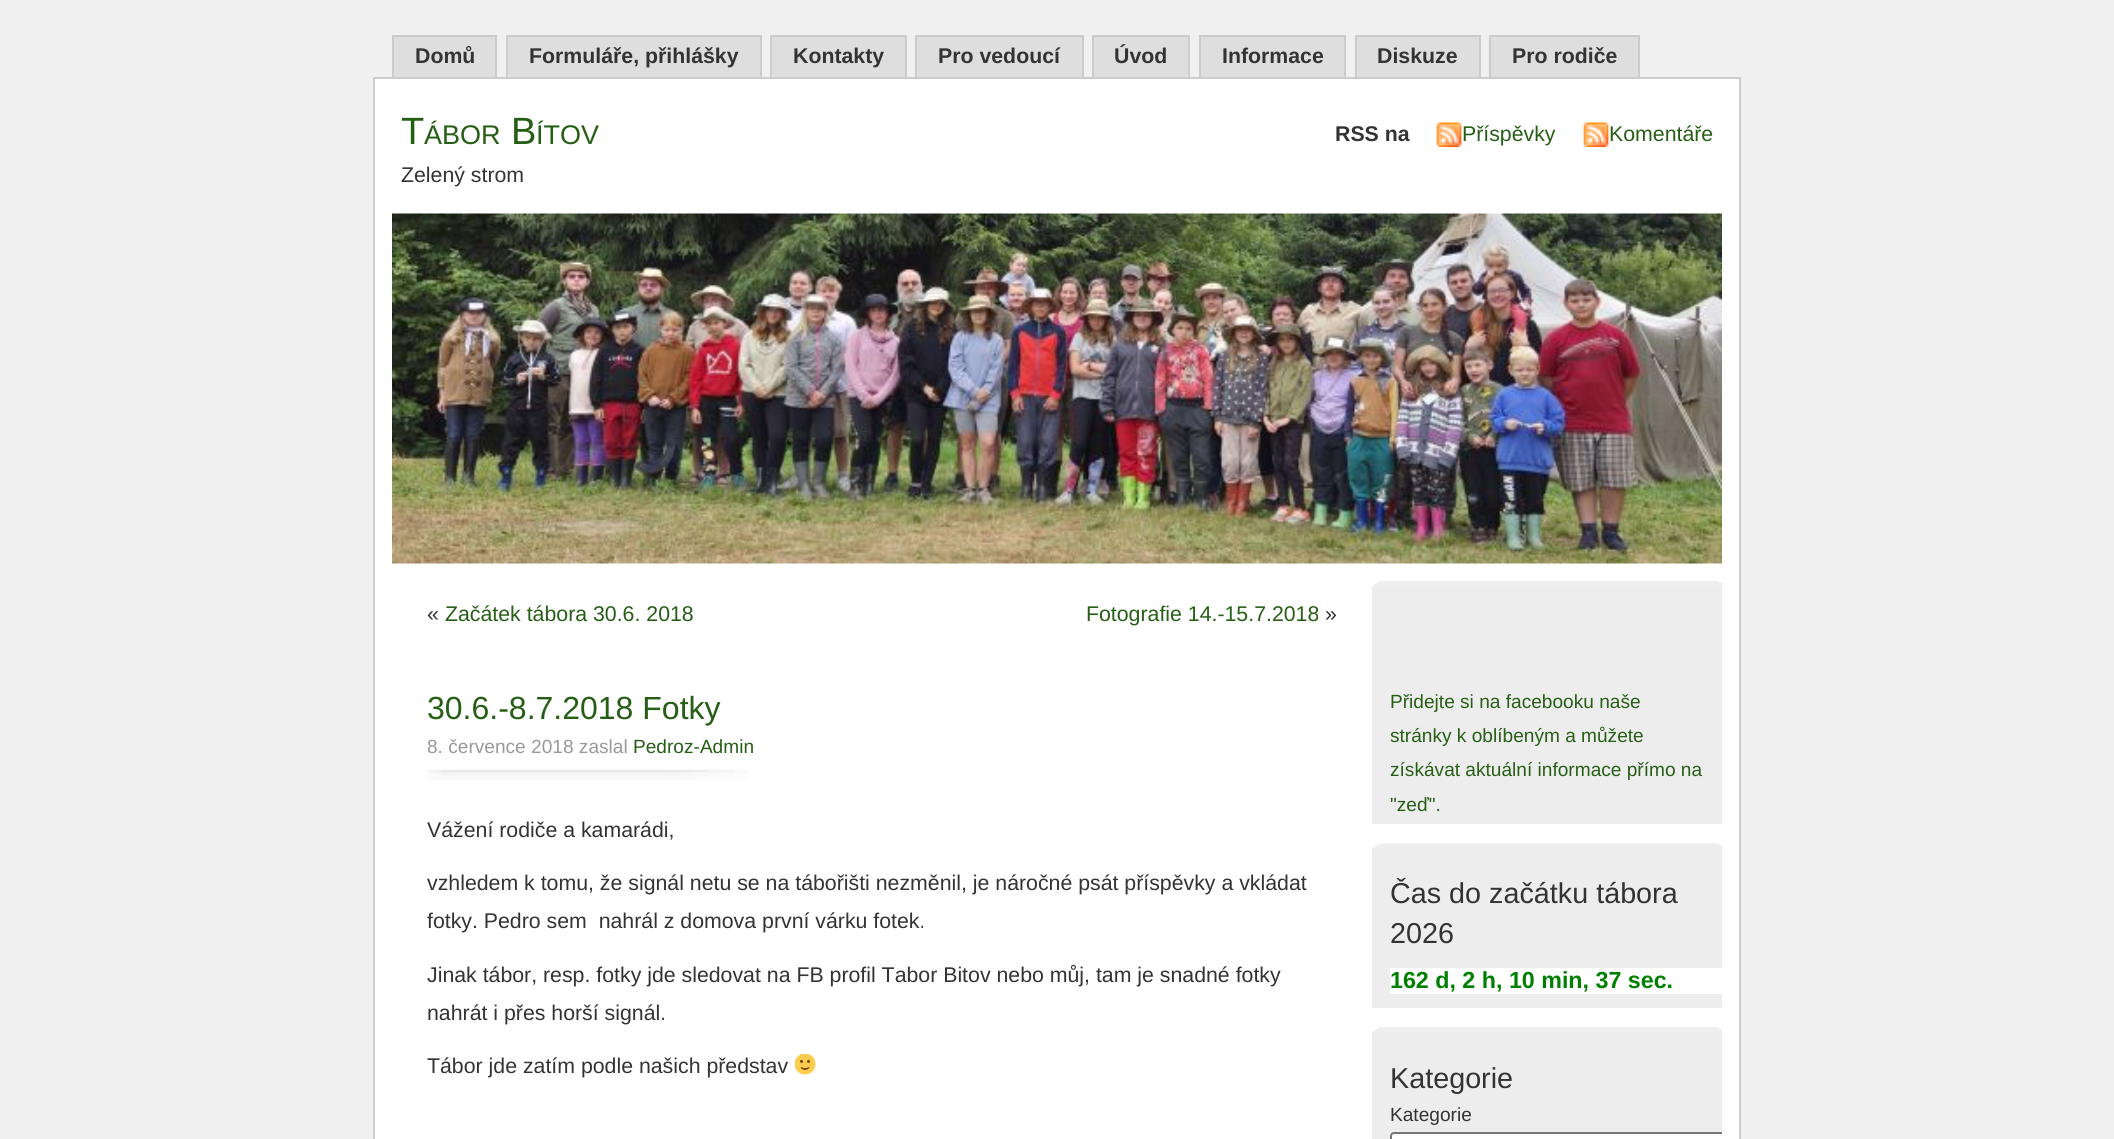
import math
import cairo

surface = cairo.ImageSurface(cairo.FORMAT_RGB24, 2114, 1139)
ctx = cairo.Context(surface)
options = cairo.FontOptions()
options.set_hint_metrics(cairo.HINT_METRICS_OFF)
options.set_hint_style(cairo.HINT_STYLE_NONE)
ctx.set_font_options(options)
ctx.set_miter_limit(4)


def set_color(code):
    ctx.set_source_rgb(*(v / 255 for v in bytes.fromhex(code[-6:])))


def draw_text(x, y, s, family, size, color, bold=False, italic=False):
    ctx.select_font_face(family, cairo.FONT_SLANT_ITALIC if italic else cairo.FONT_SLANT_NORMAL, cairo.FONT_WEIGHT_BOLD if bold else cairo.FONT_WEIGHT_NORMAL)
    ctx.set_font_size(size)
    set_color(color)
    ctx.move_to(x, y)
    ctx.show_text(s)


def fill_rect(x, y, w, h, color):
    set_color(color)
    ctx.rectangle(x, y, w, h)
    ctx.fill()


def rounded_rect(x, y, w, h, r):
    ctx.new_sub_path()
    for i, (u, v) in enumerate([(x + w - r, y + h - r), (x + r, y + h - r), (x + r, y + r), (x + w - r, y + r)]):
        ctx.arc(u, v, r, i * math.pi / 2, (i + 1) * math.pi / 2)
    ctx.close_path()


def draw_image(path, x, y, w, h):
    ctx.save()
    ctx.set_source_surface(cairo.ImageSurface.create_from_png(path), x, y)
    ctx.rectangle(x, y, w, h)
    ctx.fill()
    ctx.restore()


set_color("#f0f0f0")
ctx.paint()
fill_rect(394, 37, 101, 40, "#dedede")
fill_rect(392, 35, 105, 2, "#cccccc")
fill_rect(495, 35, 2, 42, "#cccccc")
fill_rect(392, 35, 2, 42, "#cccccc")
draw_text(415, 63, "Domů", "Liberation Sans", 21.3, "#333333", bold=True)
fill_rect(508, 37, 252, 40, "#dedede")
fill_rect(506, 35, 255, 2, "#cccccc")
fill_rect(760, 35, 2, 42, "#cccccc")
fill_rect(506, 35, 2, 42, "#cccccc")
draw_text(529, 63, "Formuláře, přihlášky", "Liberation Sans", 21.3, "#333333", bold=True)
fill_rect(772, 37, 133, 40, "#dedede")
fill_rect(770, 35, 137, 2, "#cccccc")
fill_rect(905, 35, 2, 42, "#cccccc")
fill_rect(770, 35, 2, 42, "#cccccc")
draw_text(793, 63, "Kontakty", "Liberation Sans", 21.3, "#333333", bold=True)
fill_rect(917, 37, 165, 40, "#dedede")
fill_rect(915, 35, 168, 2, "#cccccc")
fill_rect(1082, 35, 2, 42, "#cccccc")
fill_rect(915, 35, 2, 42, "#cccccc")
draw_text(938, 63, "Pro vedoucí", "Liberation Sans", 21.3, "#333333", bold=True)
fill_rect(1094, 37, 94, 40, "#dedede")
fill_rect(1092, 35, 98, 2, "#cccccc")
fill_rect(1188, 35, 2, 42, "#cccccc")
fill_rect(1092, 35, 2, 42, "#cccccc")
draw_text(1114, 63, "Úvod", "Liberation Sans", 21.3, "#333333", bold=True)
fill_rect(1201, 37, 143, 40, "#dedede")
fill_rect(1199, 35, 147, 2, "#cccccc")
fill_rect(1344, 35, 2, 42, "#cccccc")
fill_rect(1199, 35, 2, 42, "#cccccc")
draw_text(1222, 63, "Informace", "Liberation Sans", 21.3, "#333333", bold=True)
fill_rect(1357, 37, 122, 40, "#dedede")
fill_rect(1355, 35, 126, 2, "#cccccc")
fill_rect(1479, 35, 2, 42, "#cccccc")
fill_rect(1355, 35, 2, 42, "#cccccc")
draw_text(1377, 63, "Diskuze", "Liberation Sans", 21.3, "#333333", bold=True)
fill_rect(1491, 37, 147, 40, "#dedede")
fill_rect(1489, 35, 151, 2, "#cccccc")
fill_rect(1638, 35, 2, 42, "#cccccc")
fill_rect(1489, 35, 2, 42, "#cccccc")
draw_text(1512, 63, "Pro rodiče", "Liberation Sans", 21.3, "#333333", bold=True)
set_color("#ffffff")
ctx.rectangle(374, 78, 1366, 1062)
ctx.fill_preserve()
set_color("#cccccc")
ctx.stroke()
draw_text(401, 144, "T", "Liberation Sans", 38, "#265e15")
draw_text(424, 144, "ÁBOR", "Liberation Sans", 27, "#265e15")
draw_text(511, 144, "B", "Liberation Sans", 38, "#265e15")
draw_text(536, 144, "ÍTOV", "Liberation Sans", 27, "#265e15")
draw_text(401, 182, "Zelený strom", "Liberation Sans", 21.3, "#333333")
draw_text(1335, 141, "RSS na", "Liberation Sans", 21.3, "#333333", bold=True)
draw_image("assets/img1.png", 1436, 122, 26, 25)
draw_text(1462, 141, "Příspěvky", "Liberation Sans", 21.3, "#265e15")
draw_image("assets/img1.png", 1583, 122, 26, 25)
draw_text(1609, 141, "Komentáře", "Liberation Sans", 21.3, "#265e15")
draw_image("assets/img2.png", 392, 213, 1330, 351)
draw_text(427, 621, "«", "Liberation Sans", 21.3, "#333333")
draw_text(445, 621, "Začátek tábora 30.6. 2018", "Liberation Sans", 21.3, "#265e15")
draw_text(1086, 621, "Fotografie 14.-15.7.2018", "Liberation Sans", 21.3, "#265e15")
draw_text(1325, 621, "»", "Liberation Sans", 21.3, "#333333")
draw_text(427, 719, "30.6.-8.7.2018 Fotky", "Liberation Sans", 32, "#265e15")
draw_image("assets/img3.png", 427, 769, 322, 11)
draw_text(427, 753, "8. července 2018 zaslal", "Liberation Sans", 19.1, "#999999")
draw_text(633, 753, "Pedroz-Admin", "Liberation Sans", 19.1, "#265e15")
draw_text(427, 837, "Vážení rodiče a kamarádi,", "Liberation Sans", 21.3, "#333333")
draw_text(427, 890, "vzhledem k tomu, že signál netu se na tábořišti nezměnil, je náročné psát příspěvky a vkládat", "Liberation Sans", 21.3, "#333333")
draw_text(427, 928, "fotky. Pedro sem  nahrál z domova první várku fotek.", "Liberation Sans", 21.3, "#333333")
draw_text(427, 982, "Jinak tábor, resp. fotky jde sledovat na FB profil Tabor Bitov nebo můj, tam je snadné fotky", "Liberation Sans", 21.3, "#333333")
draw_text(427, 1020, "nahrát i přes horší signál.", "Liberation Sans", 21.3, "#333333")
draw_text(427, 1073, "Tábor jde zatím podle našich představ", "Liberation Sans", 21.3, "#333333")
draw_image("assets/img4.png", 795, 1054, 21, 21)
fill_rect(1372, 587, 350, 237, "#ededed")
draw_image("assets/img5.png", 1372, 581, 350, 6)
draw_text(1390, 708, "Přidejte si na facebooku naše", "Liberation Sans", 19.1, "#265e15")
draw_text(1390, 742, "stránky k oblíbeným a můžete", "Liberation Sans", 19.1, "#265e15")
draw_text(1390, 776, "získávat aktuální informace přímo na", "Liberation Sans", 19.1, "#265e15")
draw_text(1390, 811, "\"zeď\".", "Liberation Sans", 19.1, "#265e15")
fill_rect(1372, 849, 350, 159, "#ededed")
draw_image("assets/img6.png", 1372, 843, 350, 6)
draw_text(1390, 903, "Čas do začátku tábora", "Liberation Sans", 28.75, "#333333")
draw_text(1390, 943, "2026", "Liberation Sans", 28.75, "#333333")
fill_rect(1390, 968, 332, 26, "#ffffff")
draw_text(1390, 988, "162 d, 2 h, 10 min, 37 sec.", "Liberation Sans", 23.25, "#008000", bold=True)
fill_rect(1372, 1027, 350, 112, "#ededed")
draw_image("assets/img7.png", 1372, 1027, 350, 6)
draw_text(1390, 1088, "Kategorie", "Liberation Sans", 28.75, "#333333")
draw_text(1390, 1121, "Kategorie", "Liberation Sans", 19.1, "#333333")
set_color("#ffffff")
ctx.new_path()
ctx.move_to(1394, 1132)
ctx.line_to(1722, 1132)
ctx.line_to(1722, 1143)
ctx.line_to(1394, 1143)
ctx.curve_to(1392, 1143, 1390, 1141, 1390, 1139)
ctx.line_to(1390, 1136)
ctx.curve_to(1390, 1134, 1392, 1132, 1394, 1132)
ctx.close_path()
ctx.fill()
ctx.save()
ctx.rectangle(1372, 581, 350, 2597)
ctx.clip()
rounded_rect(1391, 1133, 353, 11, 3)
set_color("#767676")
ctx.stroke()
ctx.restore()
surface.write_to_png("output.png")
